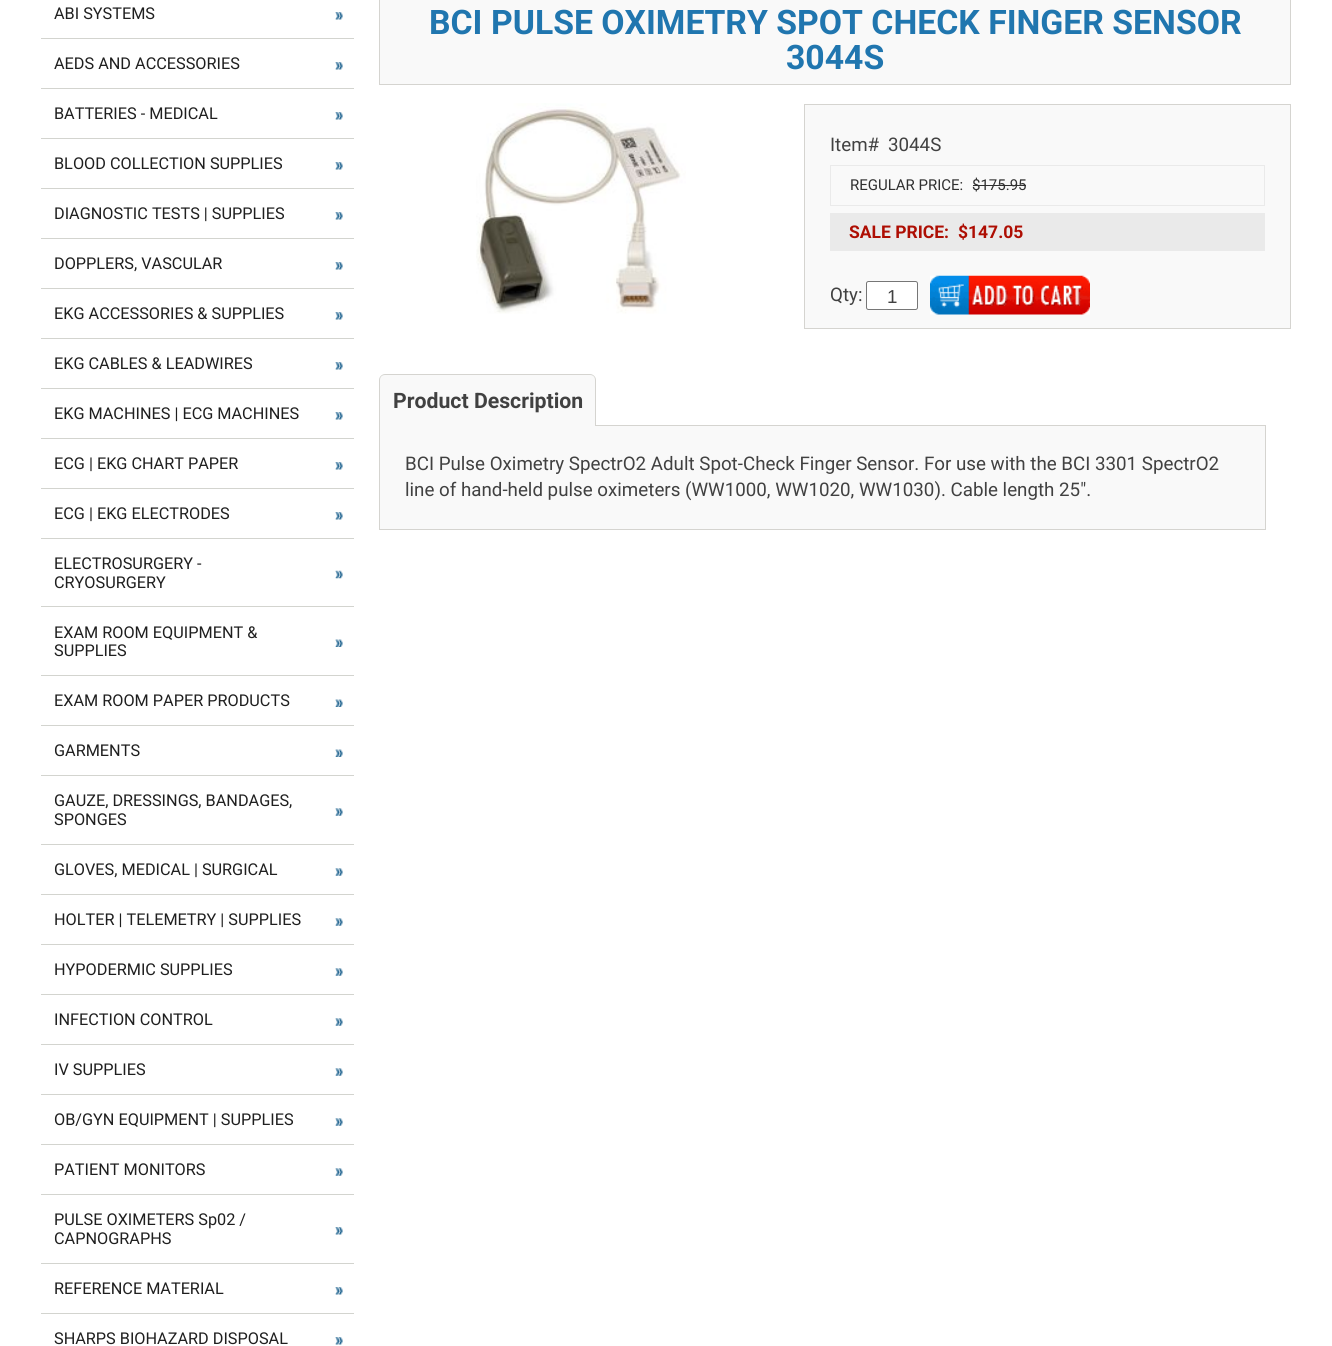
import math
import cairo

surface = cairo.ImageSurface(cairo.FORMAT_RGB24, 1332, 1346)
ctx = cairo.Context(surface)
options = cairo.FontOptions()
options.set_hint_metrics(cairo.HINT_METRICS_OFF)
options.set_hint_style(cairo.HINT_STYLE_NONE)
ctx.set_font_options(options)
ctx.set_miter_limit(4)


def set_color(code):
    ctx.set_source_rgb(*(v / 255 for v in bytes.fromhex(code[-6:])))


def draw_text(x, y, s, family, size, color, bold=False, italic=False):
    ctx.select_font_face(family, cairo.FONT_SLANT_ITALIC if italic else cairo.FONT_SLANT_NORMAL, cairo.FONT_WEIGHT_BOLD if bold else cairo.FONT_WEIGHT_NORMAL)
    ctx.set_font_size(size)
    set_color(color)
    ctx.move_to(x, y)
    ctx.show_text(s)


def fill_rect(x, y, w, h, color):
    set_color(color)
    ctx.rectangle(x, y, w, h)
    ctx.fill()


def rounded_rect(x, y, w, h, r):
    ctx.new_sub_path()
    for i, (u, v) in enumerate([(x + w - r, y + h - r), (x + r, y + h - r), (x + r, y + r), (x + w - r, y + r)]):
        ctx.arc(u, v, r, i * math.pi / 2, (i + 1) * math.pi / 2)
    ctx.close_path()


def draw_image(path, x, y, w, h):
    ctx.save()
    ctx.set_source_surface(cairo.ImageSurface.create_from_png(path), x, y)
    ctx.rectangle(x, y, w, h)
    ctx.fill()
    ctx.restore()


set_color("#ffffff")
ctx.paint()
fill_rect(41, 38, 313, 1, "#d3d4cf")
draw_text(54, 19, "ABI SYSTEMS", "Roboto", 16.25, "#1f1f1f")
draw_image("assets/img1.png", 335, 12, 8, 8)
fill_rect(41, 88, 313, 1, "#d3d4cf")
draw_text(54, 69, "AEDS AND ACCESSORIES", "Roboto", 16.25, "#1f1f1f")
draw_image("assets/img1.png", 335, 62, 8, 8)
fill_rect(41, 138, 313, 1, "#d3d4cf")
draw_text(54, 119, "BATTERIES - MEDICAL", "Roboto", 16.25, "#1f1f1f")
draw_image("assets/img1.png", 335, 112, 8, 8)
fill_rect(41, 188, 313, 1, "#d3d4cf")
draw_text(54, 169, "BLOOD COLLECTION SUPPLIES", "Roboto", 16.25, "#1f1f1f")
draw_image("assets/img1.png", 335, 162, 8, 8)
fill_rect(41, 238, 313, 1, "#d3d4cf")
draw_text(54, 219, "DIAGNOSTIC TESTS | SUPPLIES", "Roboto", 16.25, "#1f1f1f")
draw_image("assets/img1.png", 335, 212, 8, 8)
fill_rect(41, 288, 313, 1, "#d3d4cf")
draw_text(54, 269, "DOPPLERS, VASCULAR", "Roboto", 16.25, "#1f1f1f")
draw_image("assets/img1.png", 335, 262, 8, 8)
fill_rect(41, 338, 313, 1, "#d3d4cf")
draw_text(54, 319, "EKG ACCESSORIES & SUPPLIES", "Roboto", 16.25, "#1f1f1f")
draw_image("assets/img1.png", 335, 312, 8, 8)
fill_rect(41, 388, 313, 1, "#d3d4cf")
draw_text(54, 369, "EKG CABLES & LEADWIRES", "Roboto", 16.25, "#1f1f1f")
draw_image("assets/img1.png", 335, 362, 8, 8)
fill_rect(41, 438, 313, 1, "#d3d4cf")
draw_text(54, 419, "EKG MACHINES | ECG MACHINES", "Roboto", 16.25, "#1f1f1f")
draw_image("assets/img1.png", 335, 412, 8, 8)
fill_rect(41, 488, 313, 1, "#d3d4cf")
draw_text(54, 469, "ECG | EKG CHART PAPER", "Roboto", 16.25, "#1f1f1f")
draw_image("assets/img1.png", 335, 462, 8, 8)
fill_rect(41, 538, 313, 1, "#d3d4cf")
draw_text(54, 519, "ECG | EKG ELECTRODES", "Roboto", 16.25, "#1f1f1f")
draw_image("assets/img1.png", 335, 512, 8, 8)
fill_rect(41, 606, 313, 1, "#d3d4cf")
draw_text(54, 569, "ELECTROSURGERY -", "Roboto", 16.25, "#1f1f1f")
draw_text(54, 588, "CRYOSURGERY", "Roboto", 16.25, "#1f1f1f")
draw_image("assets/img2.png", 335, 570, 8, 9)
fill_rect(41, 675, 313, 1, "#d3d4cf")
draw_text(54, 638, "EXAM ROOM EQUIPMENT &", "Roboto", 16.25, "#1f1f1f")
draw_text(54, 656, "SUPPLIES", "Roboto", 16.25, "#1f1f1f")
draw_image("assets/img3.png", 335, 639, 8, 8)
fill_rect(41, 725, 313, 1, "#d3d4cf")
draw_text(54, 706, "EXAM ROOM PAPER PRODUCTS", "Roboto", 16.25, "#1f1f1f")
draw_image("assets/img3.png", 335, 699, 8, 8)
fill_rect(41, 775, 313, 1, "#d3d4cf")
draw_text(54, 756, "GARMENTS", "Roboto", 16.25, "#1f1f1f")
draw_image("assets/img4.png", 335, 749, 8, 8)
fill_rect(41, 844, 313, 1, "#d3d4cf")
draw_text(54, 806, "GAUZE, DRESSINGS, BANDAGES,", "Roboto", 16.25, "#1f1f1f")
draw_text(54, 825, "SPONGES", "Roboto", 16.25, "#1f1f1f")
draw_image("assets/img5.png", 335, 808, 8, 8)
fill_rect(41, 894, 313, 1, "#d3d4cf")
draw_text(54, 875, "GLOVES, MEDICAL | SURGICAL", "Roboto", 16.25, "#1f1f1f")
draw_image("assets/img5.png", 335, 868, 8, 8)
fill_rect(41, 944, 313, 1, "#d3d4cf")
draw_text(54, 925, "HOLTER | TELEMETRY | SUPPLIES", "Roboto", 16.25, "#1f1f1f")
draw_image("assets/img5.png", 335, 918, 8, 8)
fill_rect(41, 994, 313, 1, "#d3d4cf")
draw_text(54, 975, "HYPODERMIC SUPPLIES", "Roboto", 16.25, "#1f1f1f")
draw_image("assets/img5.png", 335, 968, 8, 8)
fill_rect(41, 1044, 313, 1, "#d3d4cf")
draw_text(54, 1025, "INFECTION CONTROL", "Roboto", 16.25, "#1f1f1f")
draw_image("assets/img5.png", 335, 1018, 8, 8)
fill_rect(41, 1094, 313, 1, "#d3d4cf")
draw_text(54, 1075, "IV SUPPLIES", "Roboto", 16.25, "#1f1f1f")
draw_image("assets/img5.png", 335, 1068, 8, 8)
fill_rect(41, 1144, 313, 1, "#d3d4cf")
draw_text(54, 1125, "OB/GYN EQUIPMENT | SUPPLIES", "Roboto", 16.25, "#1f1f1f")
draw_image("assets/img5.png", 335, 1118, 8, 8)
fill_rect(41, 1194, 313, 1, "#d3d4cf")
draw_text(54, 1175, "PATIENT MONITORS", "Roboto", 16.25, "#1f1f1f")
draw_image("assets/img5.png", 335, 1168, 8, 8)
fill_rect(41, 1263, 313, 1, "#d3d4cf")
draw_text(54, 1225, "PULSE OXIMETERS Sp02 /", "Roboto", 16.25, "#1f1f1f")
draw_text(54, 1244, "CAPNOGRAPHS", "Roboto", 16.25, "#1f1f1f")
draw_image("assets/img1.png", 335, 1227, 8, 8)
fill_rect(41, 1313, 313, 1, "#d3d4cf")
draw_text(54, 1294, "REFERENCE MATERIAL", "Roboto", 16.25, "#1f1f1f")
draw_image("assets/img1.png", 335, 1287, 8, 8)
draw_text(54, 1344, "SHARPS BIOHAZARD DISPOSAL", "Roboto", 16.25, "#1f1f1f")
draw_image("assets/img1.png", 335, 1337, 8, 8)
set_color("#f9f9f9")
ctx.rectangle(379.5, -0.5, 911, 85)
ctx.fill_preserve()
set_color("#d5d4d0")
ctx.set_line_width(1)
ctx.stroke()
draw_text(429, 34, "BCI PULSE OXIMETRY SPOT CHECK FINGER SENSOR", "Roboto", 33.75, "#2076af", bold=True)
draw_text(786, 69, "3044S", "Roboto", 33.75, "#2076af", bold=True)
draw_image("assets/img6.png", 476, 103, 210, 211)
set_color("#f9f9f9")
ctx.rectangle(804.5, 104.5, 486, 224)
ctx.fill_preserve()
set_color("#d5d4d0")
ctx.stroke()
draw_text(830, 151, "Item#", "Roboto", 18.75, "#414141")
draw_text(888, 151, "3044S", "Roboto", 18.75, "#414141")
ctx.rectangle(830.5, 165.5, 434, 40)
set_color("#eaeaea")
ctx.stroke()
draw_text(850, 190, "REGULAR PRICE:", "Roboto", 15, "#303030")
draw_text(972, 190, "$175.95", "Roboto", 15, "#303030")
fill_rect(973, 185, 53, 1, "#303030")
fill_rect(830, 213, 435, 38, "#eaeaea")
draw_text(849, 238, "SALE PRICE:", "Roboto", 17.5, "#ae0e03", bold=True)
draw_text(958, 238, "$147.05", "Roboto", 17.5, "#ae0e03", bold=True)
draw_text(830, 301, "Qty:", "Roboto", 18.75, "#414141")
set_color("#ffffff")
rounded_rect(866.5, 281.5, 51, 28, 2)
ctx.fill_preserve()
set_color("#767676")
ctx.stroke()
draw_text(887, 303, "1", "Liberation Sans", 18.75, "#414141")
draw_image("assets/img7.png", 930, 275, 160, 40)
set_color("#f9f9f9")
ctx.rectangle(379.5, 425.5, 886, 104)
ctx.fill_preserve()
set_color("#d5d4d0")
ctx.stroke()
set_color("#f9f9f9")
ctx.new_path()
ctx.move_to(385, 374)
ctx.line_to(590, 374)
ctx.curve_to(593.5, 374, 596, 376.5, 596, 380)
ctx.line_to(596, 426)
ctx.line_to(379, 426)
ctx.line_to(379, 380)
ctx.curve_to(379, 376.5, 381.5, 374, 385, 374)
ctx.close_path()
ctx.fill()
set_color("#d5d4d0")
ctx.set_fill_rule(cairo.FILL_RULE_EVEN_ODD)
ctx.new_path()
ctx.move_to(385, 374)
ctx.line_to(590, 374)
ctx.curve_to(593, 374, 596, 377, 596, 380)
ctx.line_to(596, 426)
ctx.line_to(379, 426)
ctx.line_to(379, 380)
ctx.curve_to(379, 377, 382, 374, 385, 374)
ctx.close_path()
ctx.move_to(385, 375)
ctx.line_to(590, 375)
ctx.curve_to(593, 375, 595, 377, 595, 380)
ctx.line_to(595, 426)
ctx.line_to(380, 426)
ctx.line_to(380, 380)
ctx.curve_to(380, 377, 382, 375, 385, 375)
ctx.close_path()
ctx.fill()
draw_text(393, 408, "Product Description", "Roboto", 21.25, "#414141", bold=True)
draw_text(405, 470, "BCI Pulse Oximetry SpectrO2 Adult Spot-Check Finger Sensor. For use with the BCI 3301 SpectrO2", "Roboto", 18.75, "#414141")
draw_text(405, 496, "line of hand-held pulse oximeters (WW1000, WW1020, WW1030). Cable length 25\".", "Roboto", 18.75, "#414141")
surface.write_to_png("output.png")
